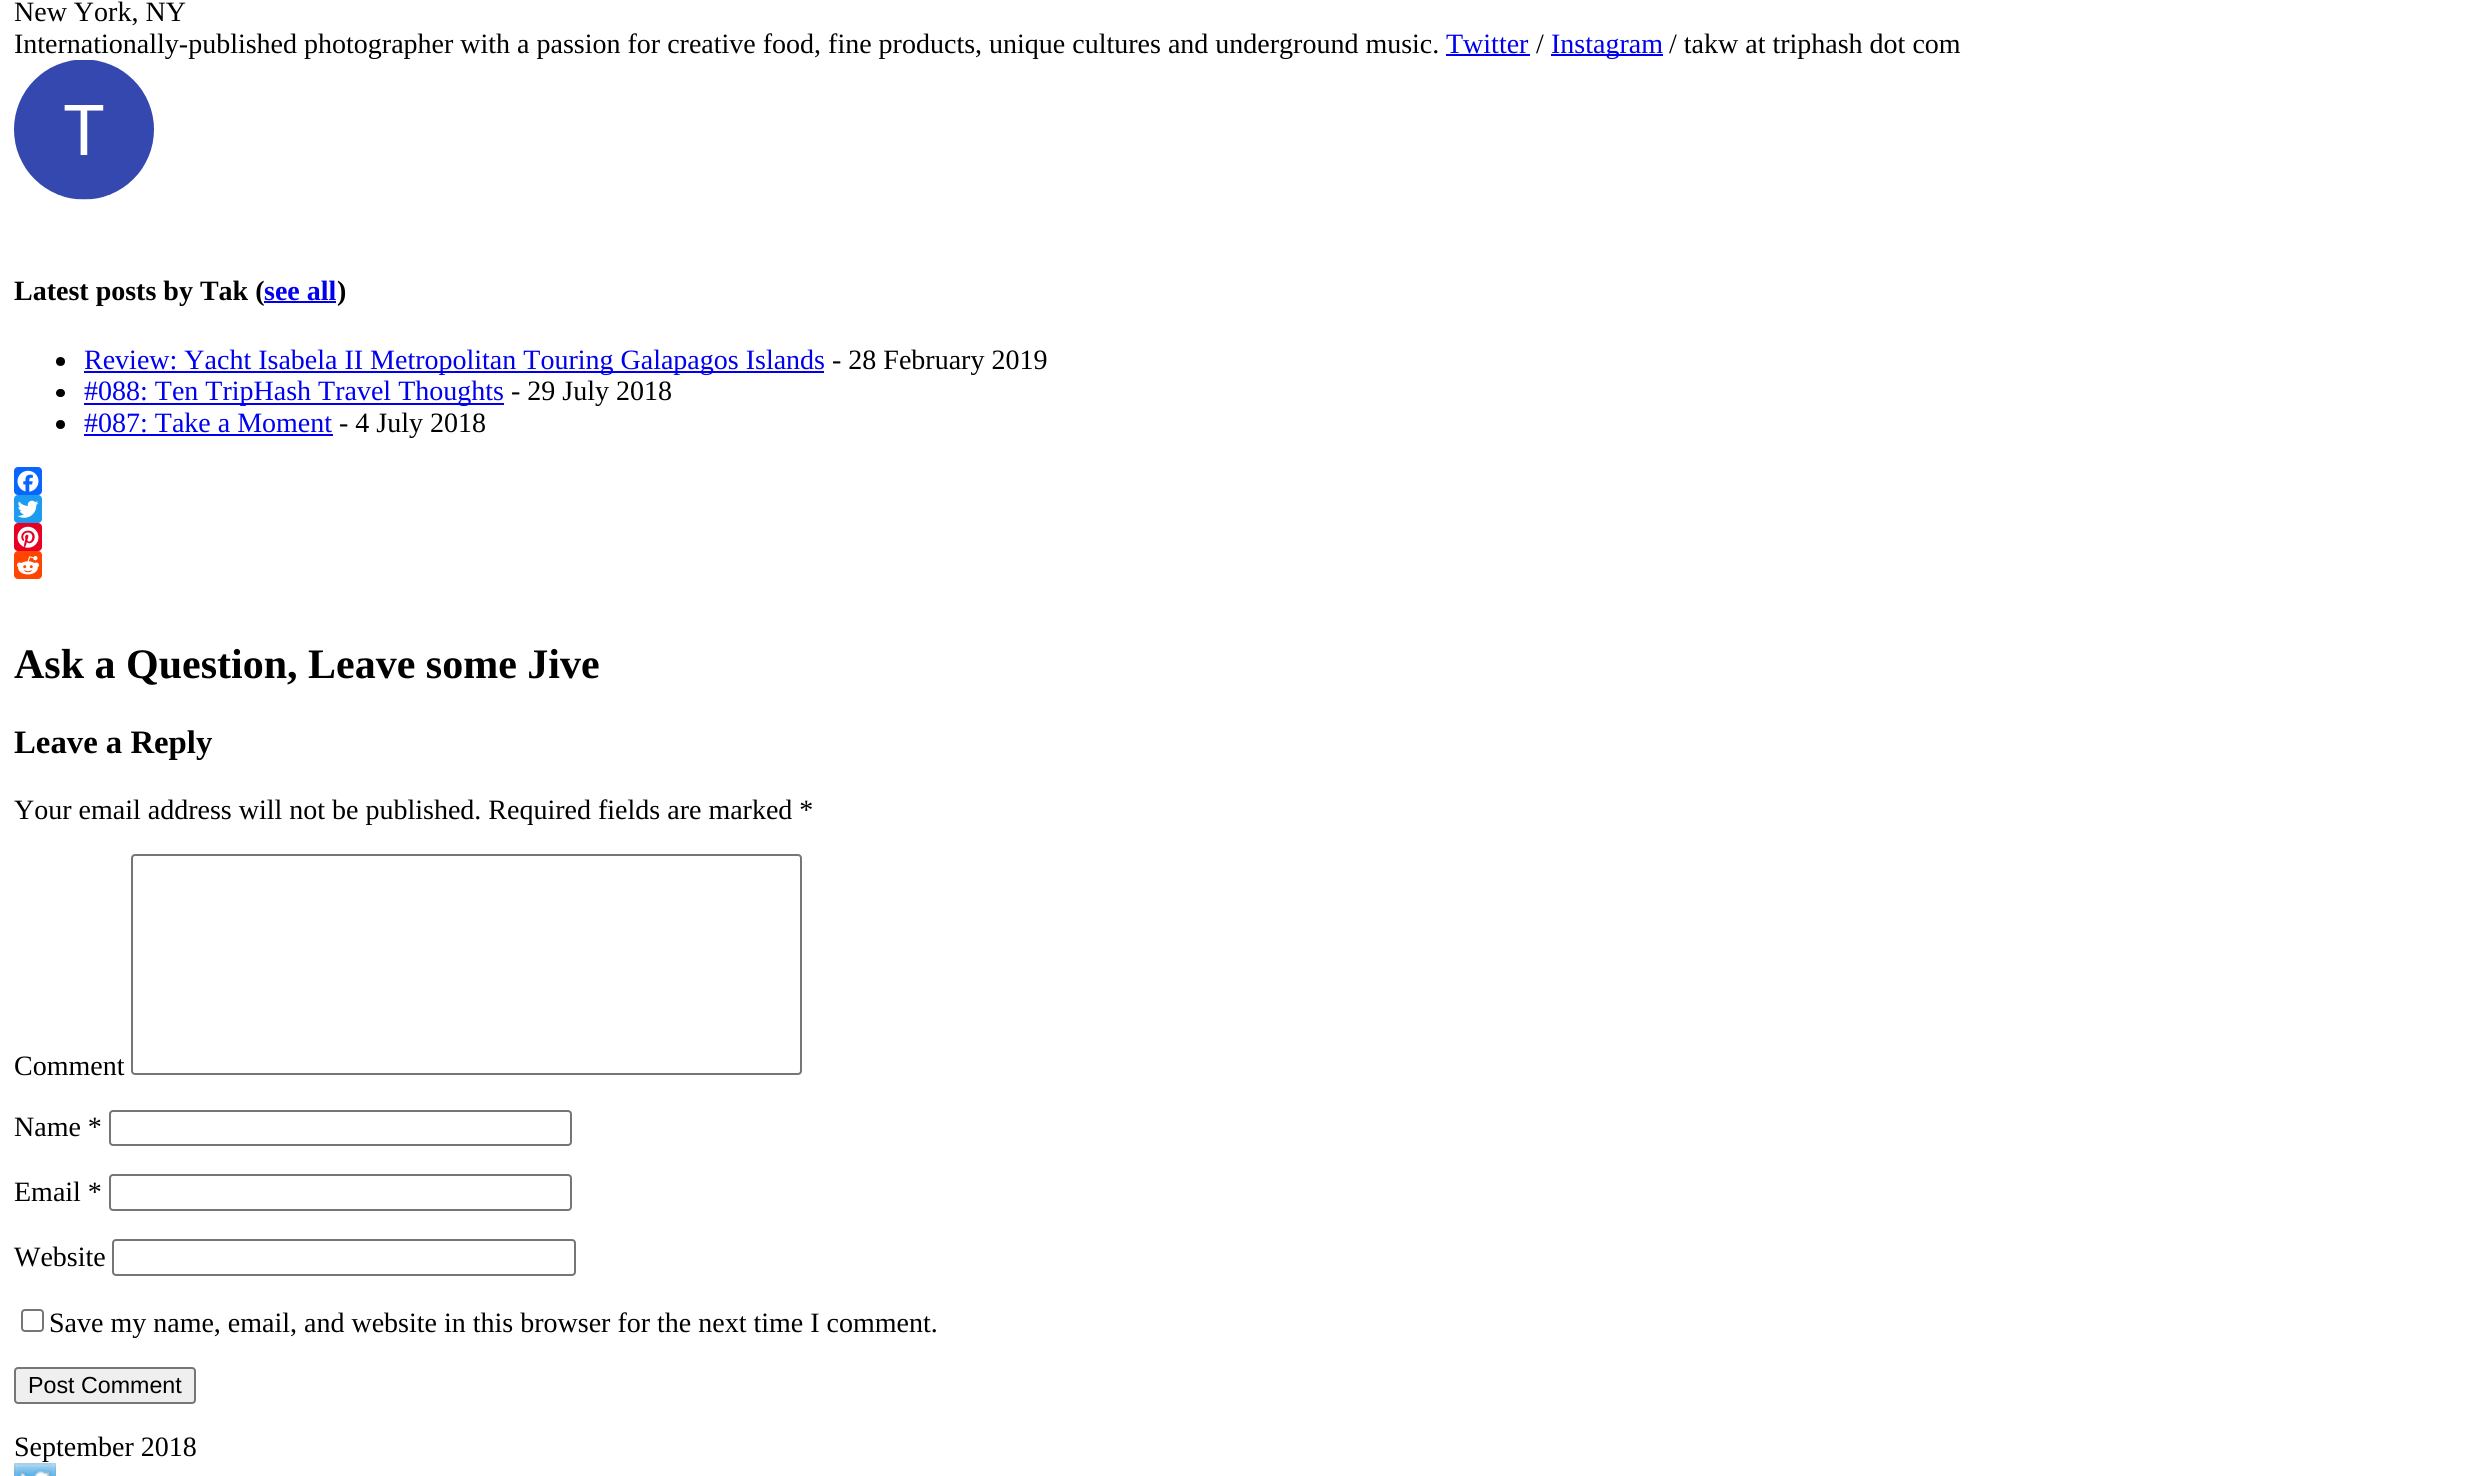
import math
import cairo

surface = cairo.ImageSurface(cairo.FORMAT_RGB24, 2486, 1476)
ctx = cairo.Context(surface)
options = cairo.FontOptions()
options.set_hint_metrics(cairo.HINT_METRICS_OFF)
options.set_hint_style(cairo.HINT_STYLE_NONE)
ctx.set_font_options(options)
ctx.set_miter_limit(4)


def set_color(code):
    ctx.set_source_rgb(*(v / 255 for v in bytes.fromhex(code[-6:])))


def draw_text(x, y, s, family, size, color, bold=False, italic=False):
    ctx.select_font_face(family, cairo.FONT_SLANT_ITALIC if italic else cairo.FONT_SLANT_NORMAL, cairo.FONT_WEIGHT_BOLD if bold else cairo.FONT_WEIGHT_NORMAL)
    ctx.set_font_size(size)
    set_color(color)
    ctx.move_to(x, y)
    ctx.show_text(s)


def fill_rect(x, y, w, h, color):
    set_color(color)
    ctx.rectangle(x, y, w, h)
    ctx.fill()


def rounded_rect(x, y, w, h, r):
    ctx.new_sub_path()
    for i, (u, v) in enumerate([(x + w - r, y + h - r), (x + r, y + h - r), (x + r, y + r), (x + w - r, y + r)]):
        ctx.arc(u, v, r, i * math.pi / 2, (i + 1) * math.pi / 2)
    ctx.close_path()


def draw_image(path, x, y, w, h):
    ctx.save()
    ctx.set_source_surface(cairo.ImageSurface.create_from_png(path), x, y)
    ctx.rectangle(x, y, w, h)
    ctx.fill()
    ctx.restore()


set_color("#ffffff")
ctx.paint()
draw_text(14, 21, "New York, NY", "Liberation Serif", 28, "#000000")
draw_text(14, 53, "Internationally-published photographer with a passion for creative food, fine products, unique cultures and underground music.", "Liberation Serif", 28, "#000000")
draw_text(1446, 53, "Twitter", "Liberation Serif", 28, "#0000ee")
fill_rect(1446, 54, 84, 2, "#0000ee")
draw_text(1536, 53, "/", "Liberation Serif", 28, "#000000")
fill_rect(1551, 54, 112, 2, "#0000ee")
draw_text(1551, 53, "Instagram", "Liberation Serif", 28, "#0000ee")
draw_text(1669, 53, "/ takw at triphash dot com", "Liberation Serif", 28, "#000000")
draw_image("assets/img1.png", 14, 60, 140, 140)
draw_text(14, 300, "Latest posts by Tak (", "Liberation Serif", 28, "#000000", bold=True)
draw_text(264, 300, "see all", "Liberation Serif", 28, "#0000ee", bold=True)
draw_text(337, 300, ")", "Liberation Serif", 28, "#000000", bold=True)
fill_rect(264, 301, 72, 2, "#0000ee")
set_color("#000000")
ctx.new_path()
ctx.arc(60.5, 361.5, 4.5, 0, 2 * math.pi)
ctx.fill()
fill_rect(84, 371, 740, 2, "#0000ee")
draw_text(84, 369, "Review: Yacht Isabela II Metropolitan Touring Galapagos Islands", "Liberation Serif", 28, "#0000ee")
draw_text(832, 369, "- 28 February 2019", "Liberation Serif", 28, "#000000")
rounded_rect(56, 389, 9, 8, 4)
ctx.fill()
fill_rect(84, 403, 420, 2, "#0000ee")
draw_text(84, 400, "#088: Ten TripHash Travel Thoughts", "Liberation Serif", 28, "#0000ee")
draw_text(511, 400, "- 29 July 2018", "Liberation Serif", 28, "#000000")
ctx.new_path()
ctx.arc(60.5, 424.5, 4.5, 0, 2 * math.pi)
ctx.fill()
draw_text(84, 432, "#087: Take a Moment", "Liberation Serif", 28, "#0000ee")
fill_rect(84, 434, 249, 2, "#0000ee")
draw_text(339, 432, "- 4 July 2018", "Liberation Serif", 28, "#000000")
set_color("#0866ff")
rounded_rect(14, 467, 28, 28, 4)
ctx.fill()
draw_image("assets/img2.png", 17, 470, 22, 22)
set_color("#1d9bf0")
rounded_rect(14, 495, 28, 28, 4)
ctx.fill()
draw_image("assets/img3.png", 17, 500, 22, 18)
set_color("#e60023")
rounded_rect(14, 523, 28, 28, 4)
ctx.fill()
draw_image("assets/img4.png", 17, 526, 22, 22)
set_color("#ff4500")
rounded_rect(14, 551, 28, 28, 4)
ctx.fill()
draw_image("assets/img5.png", 17, 556, 22, 19)
draw_text(14, 678, "Ask a Question, Leave some Jive", "Liberation Serif", 42, "#000000", bold=True)
draw_text(14, 753, "Leave a Reply", "Liberation Serif", 32.75, "#000000", bold=True)
draw_text(14, 819, "Your email address will not be published. Required fields are marked *", "Liberation Serif", 28, "#000000")
draw_text(14, 1075, "Comment", "Liberation Serif", 28, "#000000")
rounded_rect(132, 855, 669, 219, 3)
set_color("#767676")
ctx.stroke()
draw_text(14, 1136, "Name *", "Liberation Serif", 28, "#000000")
rounded_rect(110, 1111, 461, 34, 3)
set_color("#767676")
ctx.stroke()
draw_text(14, 1201, "Email *", "Liberation Serif", 28, "#000000")
rounded_rect(110, 1175, 461, 35, 3)
set_color("#767676")
ctx.stroke()
draw_text(14, 1266, "Website", "Liberation Serif", 28, "#000000")
rounded_rect(113, 1240, 462, 35, 3)
set_color("#767676")
ctx.stroke()
rounded_rect(22, 1310, 21, 21, 3)
ctx.stroke()
draw_text(49, 1332, "Save my name, email, and website in this browser for the next time I comment.", "Liberation Serif", 28, "#000000")
set_color("#efefef")
rounded_rect(15, 1368, 180, 35, 3)
ctx.fill_preserve()
set_color("#767676")
ctx.stroke()
draw_text(28, 1393, "Post Comment", "Liberation Sans", 23.25, "#000000")
draw_text(14, 1456, "September 2018", "Liberation Serif", 28, "#000000")
draw_image("assets/img6.png", 14, 1463, 42, 13)
surface.write_to_png("output.png")
